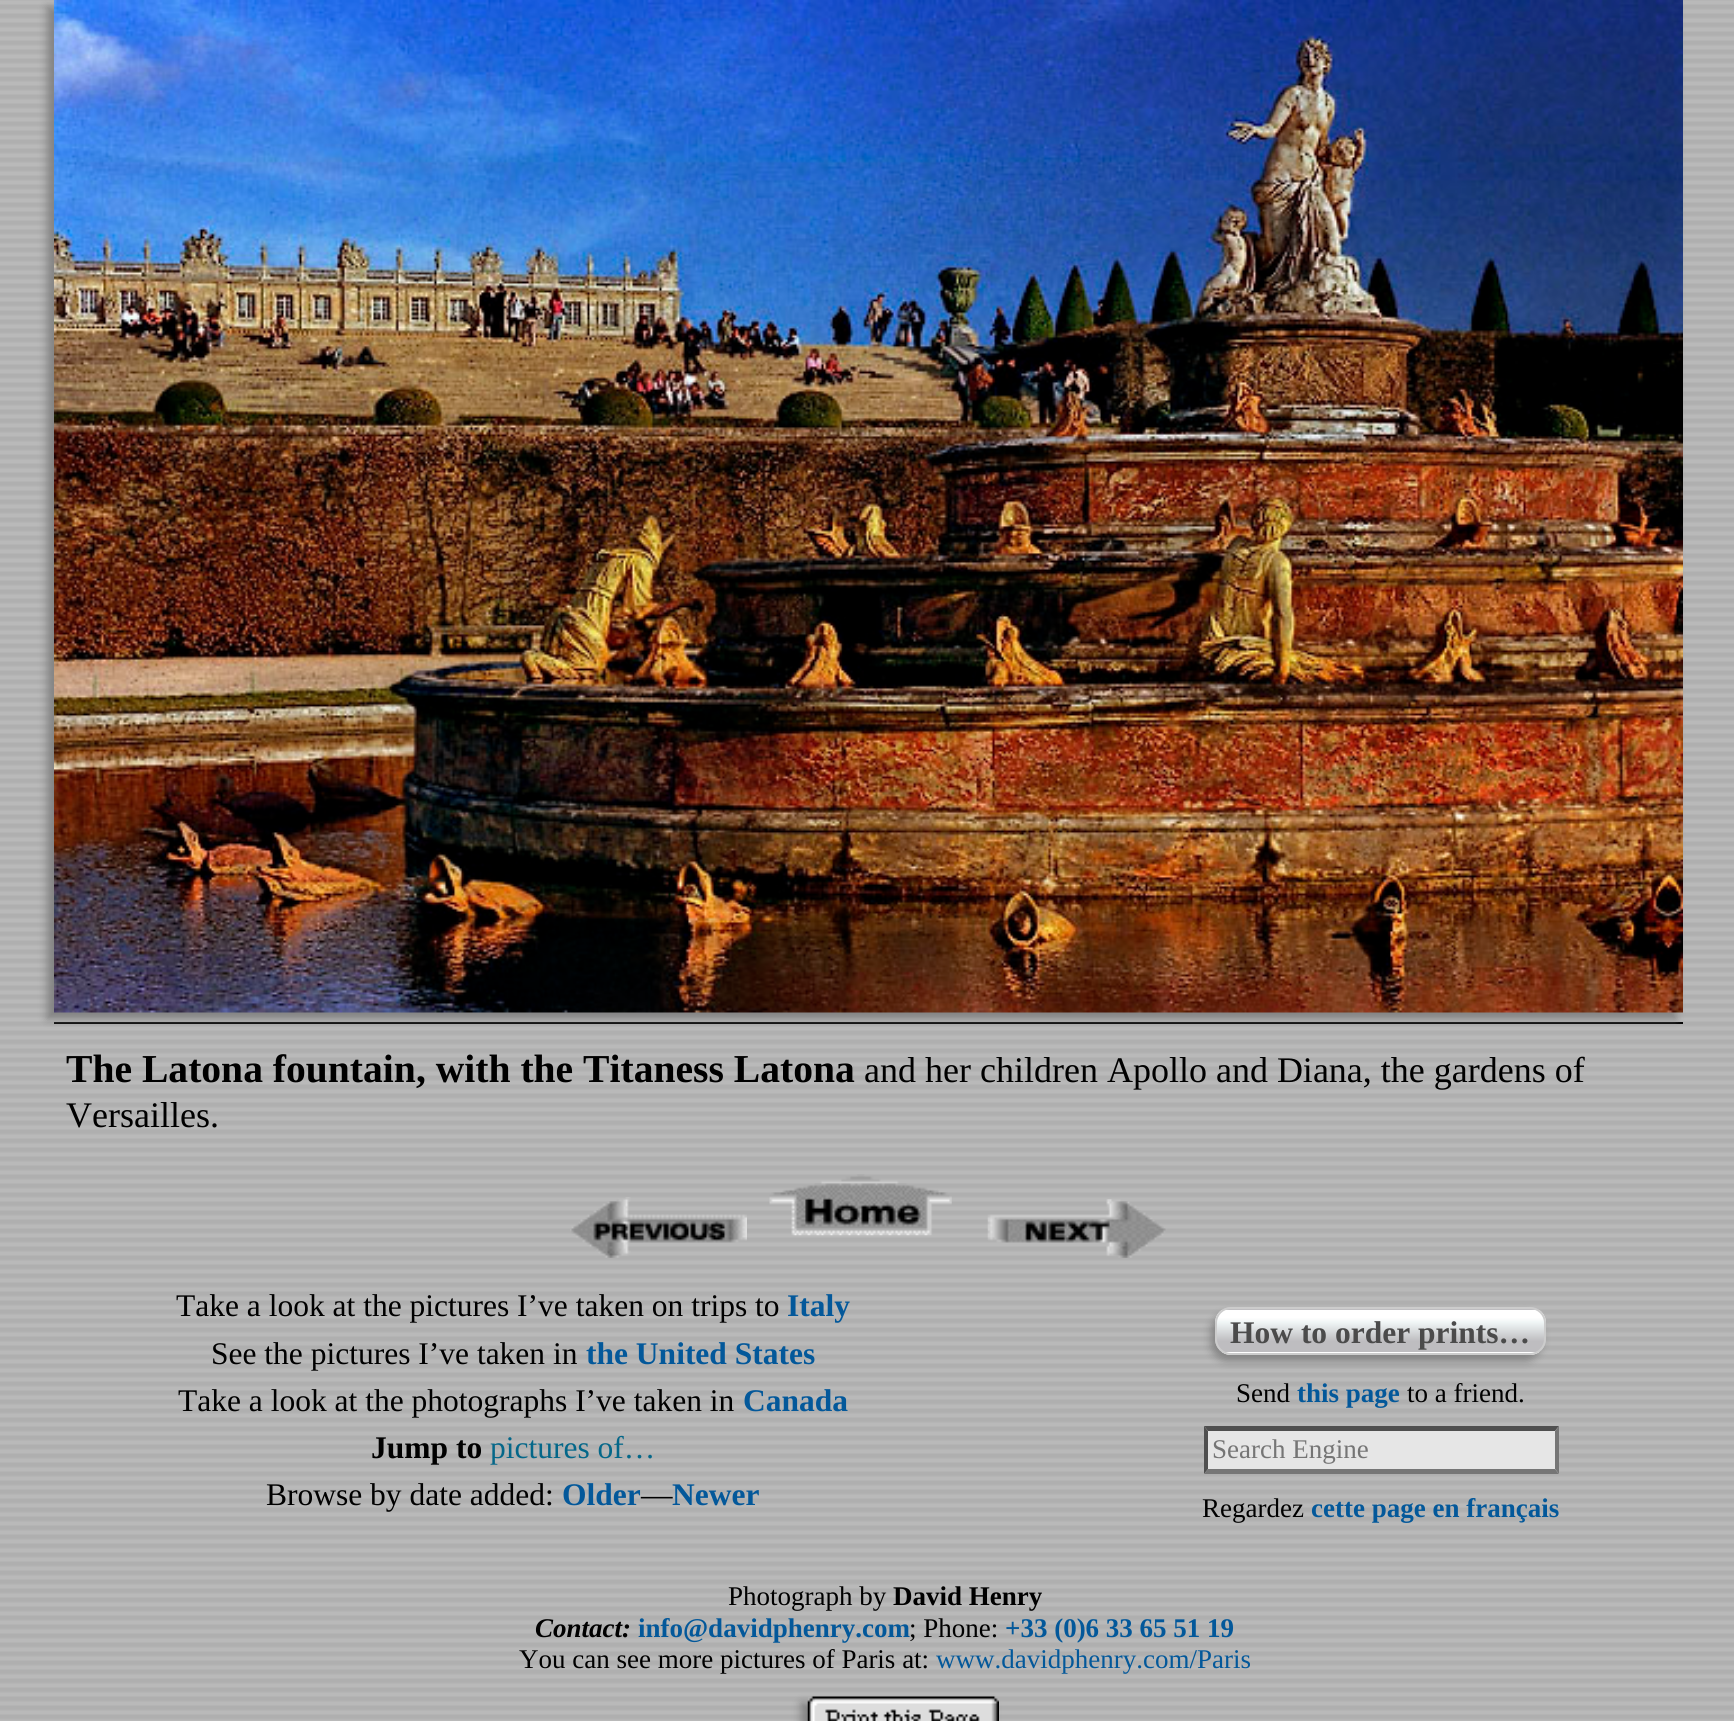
import math
import cairo

surface = cairo.ImageSurface(cairo.FORMAT_RGB24, 1734, 1721)
ctx = cairo.Context(surface)
options = cairo.FontOptions()
options.set_hint_metrics(cairo.HINT_METRICS_OFF)
options.set_hint_style(cairo.HINT_STYLE_NONE)
ctx.set_font_options(options)
ctx.set_miter_limit(4)


def set_color(code):
    ctx.set_source_rgb(*(v / 255 for v in bytes.fromhex(code[-6:])))


def draw_text(x, y, s, family, size, color, bold=False, italic=False):
    ctx.select_font_face(family, cairo.FONT_SLANT_ITALIC if italic else cairo.FONT_SLANT_NORMAL, cairo.FONT_WEIGHT_BOLD if bold else cairo.FONT_WEIGHT_NORMAL)
    ctx.set_font_size(size)
    set_color(color)
    ctx.move_to(x, y)
    ctx.show_text(s)


def fill_rect(x, y, w, h, color):
    set_color(color)
    ctx.rectangle(x, y, w, h)
    ctx.fill()


def rounded_rect(x, y, w, h, r):
    ctx.new_sub_path()
    for i, (u, v) in enumerate([(x + w - r, y + h - r), (x + r, y + h - r), (x + r, y + r), (x + w - r, y + r)]):
        ctx.arc(u, v, r, i * math.pi / 2, (i + 1) * math.pi / 2)
    ctx.close_path()


def draw_shadow(x, y, w, h, r, blur, alpha):
    ctx.push_group_with_content(cairo.CONTENT_ALPHA)
    ctx.set_operator(cairo.OPERATOR_SOURCE)
    for i in range(15, -16, -2):
        e = blur * i / 6
        if min(w, h) + 2 * e > 0:
            ctx.set_source_rgba(0, 0, 0, alpha * math.erfc((i - 1) / 8.5) / 2)
            rounded_rect(x - e, y - e, w + 2 * e, h + 2 * e, max(0, min(r + e + blur * .6, min(w, h) / 2 + e)))
            ctx.fill()
    ctx.mask(ctx.pop_group())


def draw_image(path, x, y, w, h):
    ctx.save()
    ctx.set_source_surface(cairo.ImageSurface.create_from_png(path), x, y)
    ctx.rectangle(x, y, w, h)
    ctx.fill()
    ctx.restore()


set_color("#ffffff")
ctx.paint()
draw_image("assets/img1.png", 0, 0, 1734, 1721)
fill_rect(54, 1022, 1629, 2, "#000000")
set_color("#828282")
draw_shadow(47, 7, 1629, 1012, 0, 4.5, 1)
draw_image("assets/img2.png", 54, 0, 1629, 1013)
draw_text(66, 1082, "The Latona fountain, with the Titaness Latona", "Liberation Serif", 39.6, "#000000", bold=True)
draw_text(864, 1082, "and her children Apollo and Diana, the gardens of", "Liberation Serif", 36, "#000000")
draw_text(66, 1127, "Versailles.", "Liberation Serif", 36, "#000000")
draw_image("assets/img3.png", 570, 1197, 177, 61)
draw_image("assets/img4.png", 769, 1174, 183, 62)
draw_image("assets/img5.png", 987, 1199, 179, 59)
draw_text(176, 1316, "Take a look at the pictures I’ve taken on trips to", "Liberation Serif", 31.5, "#000000")
draw_text(787, 1316, "Italy", "Liberation Serif", 31.5, "#03589a", bold=True)
draw_text(211, 1364, "See the pictures I’ve taken in", "Liberation Serif", 31.5, "#000000")
draw_text(586, 1364, "the United States", "Liberation Serif", 31.5, "#03589a", bold=True)
draw_text(178, 1411, "Take a look at the photographs I’ve taken in", "Liberation Serif", 31.5, "#000000")
draw_text(743, 1411, "Canada", "Liberation Serif", 31.5, "#03589a", bold=True)
draw_text(371, 1458, "Jump to", "Liberation Serif", 31.5, "#000000", bold=True)
draw_text(490, 1458, "pictures of…", "Liberation Serif", 31.5, "#046789")
draw_text(266, 1505, "Browse by date added:", "Liberation Serif", 31.5, "#000000")
draw_text(562, 1505, "Older", "Liberation Serif", 31.5, "#03589a", bold=True)
draw_text(641, 1505, "—", "Liberation Serif", 31.5, "#000000")
draw_text(672, 1505, "Newer", "Liberation Serif", 31.5, "#03589a", bold=True)
set_color("#828282")
draw_shadow(1211, 1314, 330, 47, 16, 4.5, 1)
ctx.save()
rounded_rect(1215, 1307, 331, 48, 16)
ctx.clip()
gradient = cairo.LinearGradient(1217, 1310, 1217, 1267)
gradient.add_color_stop_rgba(0.26, 0.745, 0.741, 0.753, 1)
gradient.add_color_stop_rgba(0.7, 0.937, 0.961, 0.961, 1)
gradient.add_color_stop_rgba(0.82, 1, 1, 1, 1)
ctx.set_source(gradient)
ctx.rectangle(1215, 1307, 331, 3)
ctx.fill()
gradient = cairo.LinearGradient(1217, 1352, 1217, 1310)
gradient.add_color_stop_rgba(0.26, 0.745, 0.741, 0.753, 1)
gradient.add_color_stop_rgba(0.7, 0.937, 0.961, 0.961, 1)
gradient.add_color_stop_rgba(0.82, 1, 1, 1, 1)
ctx.set_source(gradient)
ctx.rectangle(1215, 1310, 331, 42)
ctx.fill()
gradient = cairo.LinearGradient(1217, 1395, 1217, 1352)
gradient.add_color_stop_rgba(0.26, 0.745, 0.741, 0.753, 1)
gradient.add_color_stop_rgba(0.7, 0.937, 0.961, 0.961, 1)
gradient.add_color_stop_rgba(0.82, 1, 1, 1, 1)
ctx.set_source(gradient)
ctx.rectangle(1215, 1352, 331, 3)
ctx.fill()
ctx.restore()
rounded_rect(1216, 1308, 329, 46, 15)
set_color("#cccccc")
ctx.stroke()
draw_text(1230, 1343, "How to order prints…", "Liberation Serif", 31.5, "#4b4b4b", bold=True)
draw_text(1236, 1402, "Send", "Liberation Serif", 27, "#000000")
draw_text(1297, 1402, "this page", "Liberation Serif", 27, "#03589a", bold=True)
draw_text(1407, 1402, "to a friend.", "Liberation Serif", 27, "#000000")
fill_rect(1204, 1427, 355, 47, "#e6e6e6")
set_color("#4f4f4f")
ctx.new_path()
ctx.move_to(1204, 1426)
ctx.line_to(1559, 1426)
ctx.line_to(1555, 1431)
ctx.line_to(1208, 1431)
ctx.close_path()
ctx.fill()
set_color("#767676")
ctx.new_path()
ctx.move_to(1559, 1426)
ctx.line_to(1559, 1474)
ctx.line_to(1555, 1469)
ctx.line_to(1555, 1431)
ctx.close_path()
ctx.fill()
ctx.new_path()
ctx.move_to(1559, 1474)
ctx.line_to(1204, 1474)
ctx.line_to(1208, 1469)
ctx.line_to(1555, 1469)
ctx.close_path()
ctx.fill()
set_color("#4f4f4f")
ctx.new_path()
ctx.move_to(1204, 1474)
ctx.line_to(1204, 1426)
ctx.line_to(1208, 1431)
ctx.line_to(1208, 1469)
ctx.close_path()
ctx.fill()
draw_text(1212, 1458, "Search Engine", "Liberation Serif", 27, "#757575")
draw_text(1202, 1517, "Regardez", "Liberation Serif", 27, "#000000")
draw_text(1311, 1517, "cette page en français", "Liberation Serif", 27, "#03589a", bold=True)
draw_text(728, 1605, "Photograph by", "Liberation Serif", 27, "#000000")
draw_text(893, 1605, "David Henry", "Liberation Serif", 27, "#000000", bold=True)
draw_text(535, 1637, "Contact:", "Liberation Serif", 27, "#000000", bold=True, italic=True)
draw_text(638, 1637, "info@davidphenry.com", "Liberation Serif", 27, "#03589a", bold=True)
draw_text(909, 1637, "; Phone:", "Liberation Serif", 27, "#000000")
draw_text(1005, 1637, "+33 (0)6 33 65 51 19", "Liberation Serif", 27, "#03589a", bold=True)
draw_text(519, 1668, "You can see more pictures of Paris at:", "Liberation Serif", 27, "#000000")
draw_text(936, 1668, "www.davidphenry.com/Paris", "Liberation Serif", 27, "#03589a")
ctx.save()
ctx.set_fill_rule(cairo.FILL_RULE_EVEN_ODD)
ctx.new_path()
ctx.move_to(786, 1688)
ctx.line_to(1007, 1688)
ctx.line_to(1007, 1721)
ctx.line_to(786, 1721)
ctx.close_path()
ctx.move_to(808, 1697)
ctx.line_to(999, 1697)
ctx.line_to(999, 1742)
ctx.line_to(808, 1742)
ctx.close_path()
ctx.clip()
set_color("#828282")
draw_shadow(801, 1703, 191, 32, 0, 4.5, 1)
ctx.restore()
draw_image("assets/img6.png", 807, 1696, 192, 25)
surface.write_to_png("output.png")
